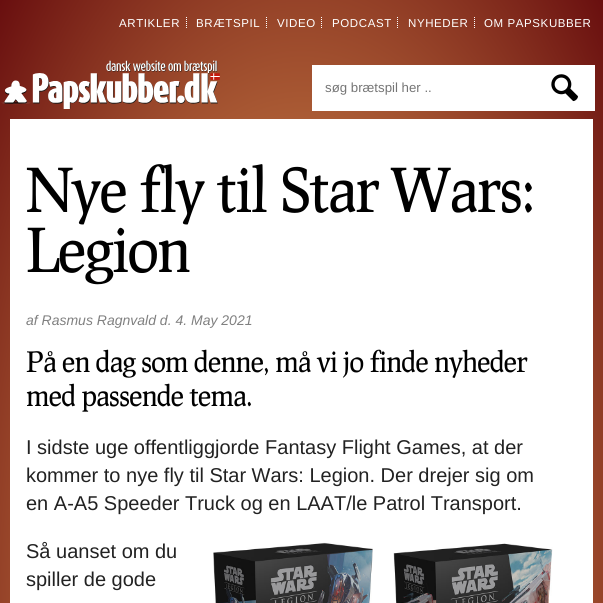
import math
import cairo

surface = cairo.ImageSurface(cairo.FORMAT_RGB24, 603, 603)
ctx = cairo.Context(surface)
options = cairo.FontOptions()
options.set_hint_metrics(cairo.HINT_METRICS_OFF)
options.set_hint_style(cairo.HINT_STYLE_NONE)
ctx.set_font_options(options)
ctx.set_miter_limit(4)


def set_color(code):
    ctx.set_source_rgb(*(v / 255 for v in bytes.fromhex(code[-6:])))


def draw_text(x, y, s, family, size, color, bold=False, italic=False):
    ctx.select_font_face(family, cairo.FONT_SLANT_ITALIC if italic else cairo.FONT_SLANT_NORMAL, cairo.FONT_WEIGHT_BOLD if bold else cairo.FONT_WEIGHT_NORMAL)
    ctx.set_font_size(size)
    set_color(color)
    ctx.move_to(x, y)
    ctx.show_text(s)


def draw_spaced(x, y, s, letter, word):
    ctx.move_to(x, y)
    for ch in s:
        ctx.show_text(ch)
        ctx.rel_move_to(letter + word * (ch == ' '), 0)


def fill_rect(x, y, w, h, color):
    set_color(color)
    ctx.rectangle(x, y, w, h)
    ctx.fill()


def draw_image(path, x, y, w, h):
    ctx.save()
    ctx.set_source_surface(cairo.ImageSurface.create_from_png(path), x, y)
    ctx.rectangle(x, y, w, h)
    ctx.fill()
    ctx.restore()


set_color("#ffffff")
ctx.paint()
gradient = cairo.RadialGradient(0, 0, 0, 0, 0, 1)
gradient.set_matrix(cairo.Matrix(1 / 426, 0, 0, 1 / 899, -1 * 302 / 426, -1 * 636 / 899))
gradient.add_color_stop_rgba(0, 0.749, 0.451, 0.251, 1)
gradient.add_color_stop_rgba(0.44, 0.749, 0.451, 0.251, 1)
gradient.add_color_stop_rgba(1, 0.412, 0.059, 0.059, 1)
ctx.set_source(gradient)
ctx.rectangle(0, 0, 603, 603)
ctx.fill()
ctx.select_font_face("Liberation Sans")
ctx.set_font_size(11.5)
set_color("#ffffff")
draw_spaced(119, 27, "ARTIKLER", 0.6, 0)
ctx.new_path()
ctx.move_to(186.5, 17)
ctx.line_to(186.5, 29)
ctx.set_line_width(1)
ctx.set_dash([1, 1])
ctx.stroke()
draw_spaced(196, 27, "BRÆTSPIL", 0.6, 0)
ctx.new_path()
ctx.move_to(266.5, 17)
ctx.line_to(266.5, 29)
ctx.stroke()
draw_spaced(277, 27, "VIDEO", 0.6, 0)
ctx.new_path()
ctx.move_to(321.5, 17)
ctx.line_to(321.5, 29)
ctx.stroke()
draw_spaced(332, 27, "PODCAST", 0.6, 0)
ctx.new_path()
ctx.move_to(397.5, 17)
ctx.line_to(397.5, 29)
ctx.stroke()
draw_spaced(408, 27, "NYHEDER", 0.6, 0)
ctx.new_path()
ctx.move_to(474.5, 17)
ctx.line_to(474.5, 29)
ctx.stroke()
draw_spaced(484, 27, "OM PAPSKUBBER", 0.6, 0)
draw_image("assets/img1.png", 1, 60, 219, 49)
fill_rect(312, 65, 283, 46, "#ffffff")
draw_image("assets/img2.png", 551, 74, 27, 28)
draw_text(325, 92, "søg brætspil her ..", "Liberation Sans", 13.25, "#757575")
fill_rect(10, 119, 583, 484, "#ffffff")
ctx.select_font_face("Prociono")
ctx.set_font_size(60)
set_color("#000000")
draw_spaced(26, 212, "Nye fly til Star Wars:", -1.35, 0)
draw_spaced(26, 272, "Legion", -1.35, 0)
draw_text(26, 325, "af Rasmus Ragnvald d. 4. May 2021", "Liberation Sans", 14, "#808080", italic=True)
ctx.select_font_face("Prociono")
ctx.set_font_size(28)
set_color("#000000")
draw_spaced(26, 372, "På en dag som denne, må vi jo finde nyheder", -0.65, 0)
draw_spaced(26, 406, "med passende tema.", -0.65, 0)
draw_text(26, 454, "I sidste uge offentliggjorde Fantasy Flight Games, at der", "Liberation Sans", 20, "#222222")
draw_text(26, 482, "kommer to nye fly til Star Wars: Legion. Der drejer sig om", "Liberation Sans", 20, "#222222")
draw_text(26, 510, "en A-A5 Speeder Truck og en LAAT/le Patrol Transport.", "Liberation Sans", 20, "#222222")
draw_text(26, 558, "Så uanset om du", "Liberation Sans", 20, "#222222")
draw_text(26, 586, "spiller de gode", "Liberation Sans", 20, "#222222")
draw_image("assets/img3.png", 213, 542, 160, 61)
draw_image("assets/img4.png", 393, 543, 160, 60)
surface.write_to_png("output.png")
